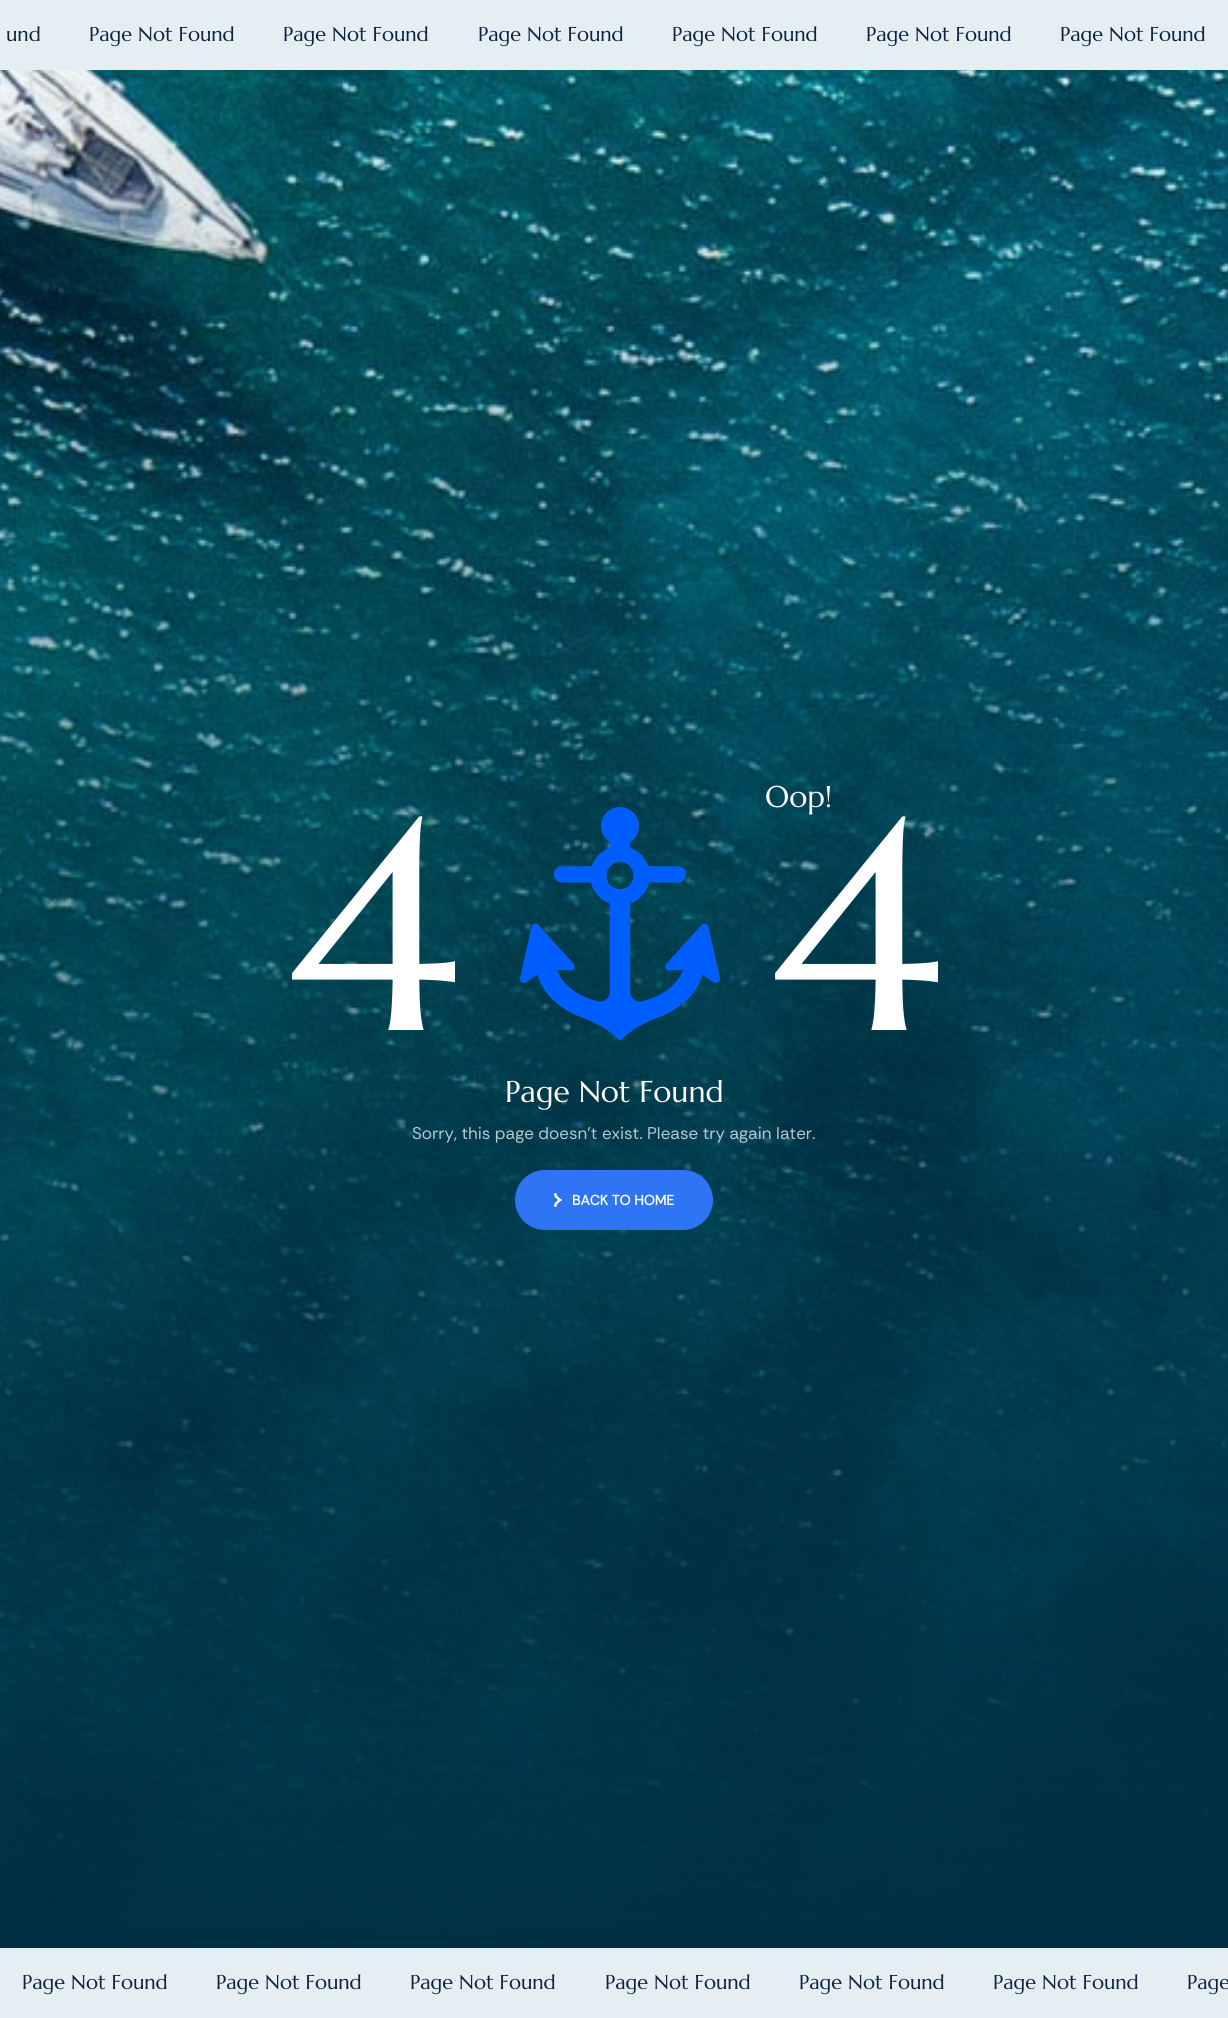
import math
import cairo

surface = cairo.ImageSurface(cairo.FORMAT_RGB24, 1228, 2018)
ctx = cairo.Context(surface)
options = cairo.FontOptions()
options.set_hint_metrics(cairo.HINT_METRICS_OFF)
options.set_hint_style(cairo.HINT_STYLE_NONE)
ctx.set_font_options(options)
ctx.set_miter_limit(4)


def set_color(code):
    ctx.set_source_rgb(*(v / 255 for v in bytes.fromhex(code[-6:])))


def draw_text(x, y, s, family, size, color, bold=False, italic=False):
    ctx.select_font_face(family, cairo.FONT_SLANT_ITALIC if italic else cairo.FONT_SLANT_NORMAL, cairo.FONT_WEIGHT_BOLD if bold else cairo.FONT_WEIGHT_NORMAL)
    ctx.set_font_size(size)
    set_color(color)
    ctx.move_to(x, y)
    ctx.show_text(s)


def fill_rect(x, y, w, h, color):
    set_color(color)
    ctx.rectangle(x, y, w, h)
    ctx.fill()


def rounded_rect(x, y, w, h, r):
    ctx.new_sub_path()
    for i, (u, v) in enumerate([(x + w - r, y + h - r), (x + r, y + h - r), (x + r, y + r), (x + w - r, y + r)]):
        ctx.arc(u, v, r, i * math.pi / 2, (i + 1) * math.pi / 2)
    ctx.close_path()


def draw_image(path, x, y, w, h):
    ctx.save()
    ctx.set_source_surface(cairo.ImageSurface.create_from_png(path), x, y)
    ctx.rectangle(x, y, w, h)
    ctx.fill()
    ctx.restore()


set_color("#ffffff")
ctx.paint()
fill_rect(0, 0, 1228, 70, "#e4eef3")
draw_text(6, 41, "und", "Marcellus", 20, "#0a223e")
draw_text(89, 41, "Page Not Found", "Marcellus", 20, "#0a223e")
draw_text(283, 41, "Page Not Found", "Marcellus", 20, "#0a223e")
draw_text(478, 41, "Page Not Found", "Marcellus", 20, "#0a223e")
draw_text(672, 41, "Page Not Found", "Marcellus", 20, "#0a223e")
draw_text(866, 41, "Page Not Found", "Marcellus", 20, "#0a223e")
draw_text(1060, 41, "Page Not Found", "Marcellus", 20, "#0a223e")
fill_rect(0, 1948, 1228, 70, "#e4eef3")
draw_text(22, 1989, "Page Not Found", "Marcellus", 20, "#0a223e")
draw_text(216, 1989, "Page Not Found", "Marcellus", 20, "#0a223e")
draw_text(410, 1989, "Page Not Found", "Marcellus", 20, "#0a223e")
draw_text(605, 1989, "Page Not Found", "Marcellus", 20, "#0a223e")
draw_text(799, 1989, "Page Not Found", "Marcellus", 20, "#0a223e")
draw_text(993, 1989, "Page Not Found", "Marcellus", 20, "#0a223e")
draw_text(1187, 1989, "Page", "Marcellus", 20, "#0a223e")
draw_image("assets/img1.png", 0, 70, 1228, 1878)
draw_text(765, 807, "Oop!", "Marcellus", 30, "#ffffff")
draw_text(287, 1030, "4", "Marcellus", 300, "#ffffff")
draw_image("assets/img2.png", 520, 807, 200, 233)
draw_text(770, 1030, "4", "Marcellus", 300, "#ffffff")
draw_text(505, 1102, "Page Not Found", "Marcellus", 30, "#ffffff")
draw_text(412, 1139, "Sorry, this page doesn't exist. Please try again later.", "Rethink Sans Thin", 17, "#b5c7cf")
set_color("#3074f6")
rounded_rect(515, 1170, 198, 60, 30)
ctx.fill()
draw_image("assets/img3.png", 554, 1193, 8, 14)
draw_text(572, 1205, "BACK TO HOME", "Rethink Sans", 14, "#ffffff", bold=True)
surface.write_to_png("output.png")
